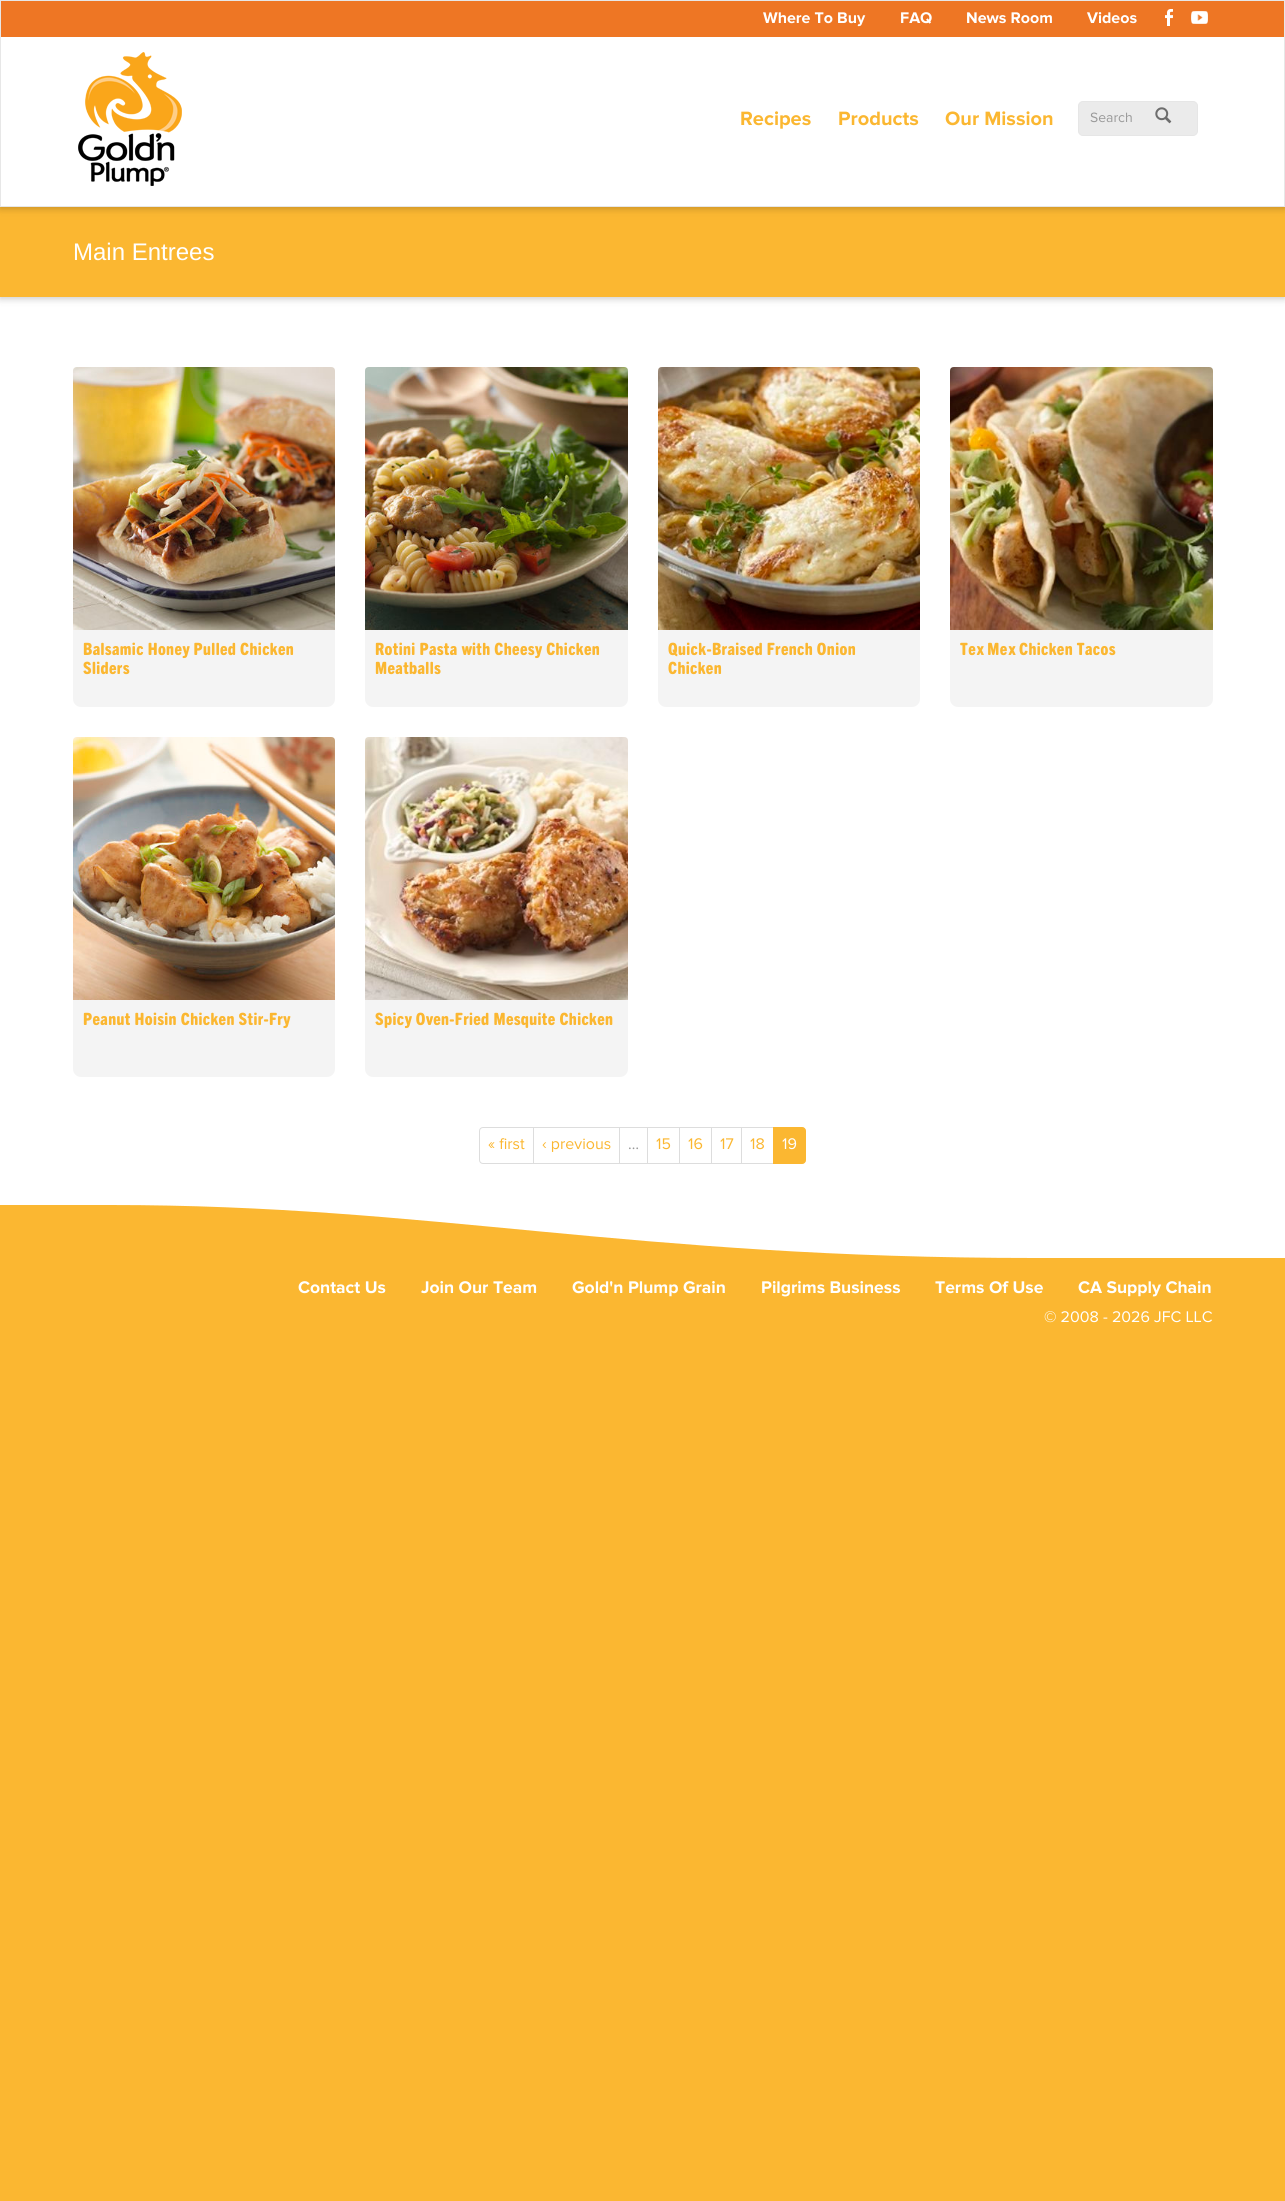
import math
import cairo

surface = cairo.ImageSurface(cairo.FORMAT_RGB24, 1285, 2201)
ctx = cairo.Context(surface)
options = cairo.FontOptions()
options.set_hint_metrics(cairo.HINT_METRICS_OFF)
options.set_hint_style(cairo.HINT_STYLE_NONE)
ctx.set_font_options(options)
ctx.set_miter_limit(4)


def set_color(code):
    ctx.set_source_rgb(*(v / 255 for v in bytes.fromhex(code[-6:])))


def draw_text(x, y, s, family, size, color, bold=False, italic=False):
    ctx.select_font_face(family, cairo.FONT_SLANT_ITALIC if italic else cairo.FONT_SLANT_NORMAL, cairo.FONT_WEIGHT_BOLD if bold else cairo.FONT_WEIGHT_NORMAL)
    ctx.set_font_size(size)
    set_color(color)
    ctx.move_to(x, y)
    ctx.show_text(s)


def draw_spaced(x, y, s, letter, word):
    ctx.move_to(x, y)
    for ch in s:
        ctx.show_text(ch)
        ctx.rel_move_to(letter + word * (ch == ' '), 0)


def fill_rect(x, y, w, h, color):
    set_color(color)
    ctx.rectangle(x, y, w, h)
    ctx.fill()


def rounded_rect(x, y, w, h, r):
    ctx.new_sub_path()
    for i, (u, v) in enumerate([(x + w - r, y + h - r), (x + r, y + h - r), (x + r, y + r), (x + w - r, y + r)]):
        ctx.arc(u, v, r, i * math.pi / 2, (i + 1) * math.pi / 2)
    ctx.close_path()


def draw_shadow(x, y, w, h, r, blur, alpha):
    ctx.push_group_with_content(cairo.CONTENT_ALPHA)
    ctx.set_operator(cairo.OPERATOR_SOURCE)
    for i in range(15, -16, -2):
        e = blur * i / 6
        if min(w, h) + 2 * e > 0:
            ctx.set_source_rgba(0, 0, 0, alpha * math.erfc((i - 1) / 8.5) / 2)
            rounded_rect(x - e, y - e, w + 2 * e, h + 2 * e, max(0, min(r + e + blur * .6, min(w, h) / 2 + e)))
            ctx.fill()
    ctx.mask(ctx.pop_group())


def draw_image(path, x, y, w, h):
    ctx.save()
    ctx.set_source_surface(cairo.ImageSurface.create_from_png(path), x, y)
    ctx.rectangle(x, y, w, h)
    ctx.fill()
    ctx.restore()


set_color("#fbb731")
ctx.paint()
fill_rect(0, 297, 1285, 908, "#ffffff")
set_color("#000000")
draw_shadow(0, 209, 1285, 90, 0, 3.5, 0.2)
fill_rect(0, 207, 1285, 90, "#fbb731")
set_color("#000000")
draw_shadow(0, 2, 1285, 207, 0, 3.5, 0.2)
fill_rect(1, 37, 1283, 169, "#ffffff")
ctx.rectangle(0.5, 0.5, 1284, 206)
set_color("#e7e7e7")
ctx.set_line_width(1)
ctx.stroke()
fill_rect(1, 1, 1283, 36, "#ee7624")
draw_text(763, 23, "Where To Buy", "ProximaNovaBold", 16, "#ffffff", bold=True)
draw_text(900, 23, "FAQ", "ProximaNovaBold", 16, "#ffffff", bold=True)
draw_text(966, 23, "News Room", "ProximaNovaBold", 16, "#ffffff", bold=True)
draw_text(1087, 23, "Videos", "ProximaNovaBold", 16, "#ffffff", bold=True)
draw_image("assets/img1.png", 1165, 9, 8, 17)
draw_image("assets/img2.png", 1191, 11, 17, 13)
draw_image("assets/img3.png", 78, 52, 104, 134)
draw_text(740, 125, "Recipes", "ProximaNovaBold", 20, "#fbb731", bold=True)
draw_text(838, 125, "Products", "ProximaNovaBold", 20, "#fbb731", bold=True)
draw_text(945, 125, "Our Mission", "ProximaNovaBold", 20, "#fbb731", bold=True)
set_color("#ebebeb")
rounded_rect(1078.5, 101.5, 119, 34, 4.5)
ctx.fill_preserve()
set_color("#e6e6e6")
ctx.stroke()
draw_text(1090, 122, "Search", "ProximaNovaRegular", 14, "#999999")
draw_image("assets/img4.png", 1155, 107, 17, 17)
draw_text(73, 260, "Main Entrees", "Liberation Sans", 24, "#ffffff")
set_color("#f4f4f4")
rounded_rect(73, 367, 262, 340, 8)
ctx.fill()
draw_image("assets/img5.png", 73, 367, 262, 263)
ctx.select_font_face("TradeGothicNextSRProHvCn")
ctx.set_font_size(17)
set_color("#fbb731")
draw_spaced(83, 655, "Balsamic Honey Pulled Chicken", 0.4, 0)
draw_spaced(83, 674, "Sliders", 0.4, 0)
set_color("#f4f4f4")
rounded_rect(365, 367, 263, 340, 8)
ctx.fill()
draw_image("assets/img6.png", 365, 367, 263, 263)
set_color("#fbb731")
draw_spaced(375, 655, "Rotini Pasta with Cheesy Chicken", 0.4, 0)
draw_spaced(375, 674, "Meatballs", 0.4, 0)
set_color("#f4f4f4")
rounded_rect(658, 367, 262, 340, 8)
ctx.fill()
draw_image("assets/img7.png", 658, 367, 262, 263)
set_color("#fbb731")
draw_spaced(668, 655, "Quick-Braised French Onion", 0.4, 0)
draw_spaced(668, 674, "Chicken", 0.4, 0)
set_color("#f4f4f4")
rounded_rect(950, 367, 263, 340, 8)
ctx.fill()
draw_image("assets/img8.png", 950, 367, 263, 263)
set_color("#fbb731")
draw_spaced(960, 655, "Tex Mex Chicken Tacos", 0.4, 0)
set_color("#f4f4f4")
rounded_rect(73, 737, 262, 340, 8)
ctx.fill()
draw_image("assets/img9.png", 73, 737, 262, 263)
set_color("#fbb731")
draw_spaced(83, 1025, "Peanut Hoisin Chicken Stir-Fry", 0.4, 0)
set_color("#f4f4f4")
rounded_rect(365, 737, 263, 340, 8)
ctx.fill()
draw_image("assets/img10.png", 365, 737, 263, 263)
set_color("#fbb731")
draw_spaced(375, 1025, "Spicy Oven-Fried Mesquite Chicken", 0.4, 0)
ctx.new_path()
ctx.move_to(483, 1127.5)
ctx.line_to(533.5, 1127.5)
ctx.line_to(533.5, 1163.5)
ctx.line_to(483, 1163.5)
ctx.curve_to(481, 1163.5, 479.5, 1162, 479.5, 1160)
ctx.line_to(479.5, 1131)
ctx.curve_to(479.5, 1129, 481, 1127.5, 483, 1127.5)
ctx.close_path()
set_color("#dddddd")
ctx.stroke()
draw_text(488, 1149, "« first", "ProximaNovaRegular", 16, "#fbb731")
ctx.rectangle(533.5, 1127.5, 86, 36)
set_color("#dddddd")
ctx.stroke()
draw_text(542, 1149, "‹ previous", "ProximaNovaRegular", 16, "#fbb731")
ctx.rectangle(619.5, 1127.5, 28, 36)
set_color("#dddddd")
ctx.stroke()
draw_text(628, 1149, "…", "ProximaNovaRegular", 16, "#999999")
ctx.rectangle(647.5, 1127.5, 32, 36)
set_color("#dddddd")
ctx.stroke()
draw_text(656, 1149, "15", "ProximaNovaRegular", 16, "#fbb731")
ctx.rectangle(679.5, 1127.5, 32, 36)
set_color("#dddddd")
ctx.stroke()
draw_text(688, 1149, "16", "ProximaNovaRegular", 16, "#fbb731")
ctx.rectangle(711.5, 1127.5, 30, 36)
set_color("#dddddd")
ctx.stroke()
draw_text(720, 1149, "17", "ProximaNovaRegular", 16, "#fbb731")
ctx.rectangle(741.5, 1127.5, 32, 36)
set_color("#dddddd")
ctx.stroke()
draw_text(750, 1149, "18", "ProximaNovaRegular", 16, "#fbb731")
ctx.new_path()
ctx.move_to(773.5, 1127.5)
ctx.line_to(802, 1127.5)
ctx.curve_to(804, 1127.5, 805.5, 1129, 805.5, 1131)
ctx.line_to(805.5, 1160)
ctx.curve_to(805.5, 1162, 804, 1163.5, 802, 1163.5)
ctx.line_to(773.5, 1163.5)
ctx.close_path()
ctx.fill_preserve()
ctx.stroke()
draw_text(782, 1149, "19", "ProximaNovaRegular", 16, "#ffffff")
fill_rect(116, 1205, 1169, 53, "#ffffff")
ctx.save()
ctx.rectangle(0, 1205, 1200, 53)
ctx.clip()
set_color("#fbb731")
ctx.set_fill_rule(cairo.FILL_RULE_EVEN_ODD)
ctx.new_path()
ctx.move_to(0, 1205)
ctx.line_to(0, 1276)
ctx.line_to(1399, 1276)
ctx.line_to(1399, 1258)
ctx.line_to(1035, 1258)
ctx.curve_to(628, 1258, 432, 1205, 110, 1205)
ctx.line_to(41, 1205)
ctx.fill()
ctx.restore()
draw_text(298, 1293, "Contact Us", "ProximaNovaBold", 17.5, "#ffffff", bold=True)
draw_text(421, 1293, "Join Our Team", "ProximaNovaBold", 17.5, "#ffffff", bold=True)
draw_text(572, 1293, "Gold'n Plump Grain", "ProximaNovaBold", 17.5, "#ffffff", bold=True)
draw_text(761, 1293, "Pilgrims Business", "ProximaNovaBold", 17.5, "#ffffff", bold=True)
draw_text(935, 1293, "Terms Of Use", "ProximaNovaBold", 17.5, "#ffffff", bold=True)
draw_text(1078, 1293, "CA Supply Chain", "ProximaNovaBold", 17.5, "#ffffff", bold=True)
draw_text(1044, 1322, "© 2008 - 2026 JFC LLC", "ProximaNovaRegular", 16, "#ffffff")
surface.write_to_png("output.png")
